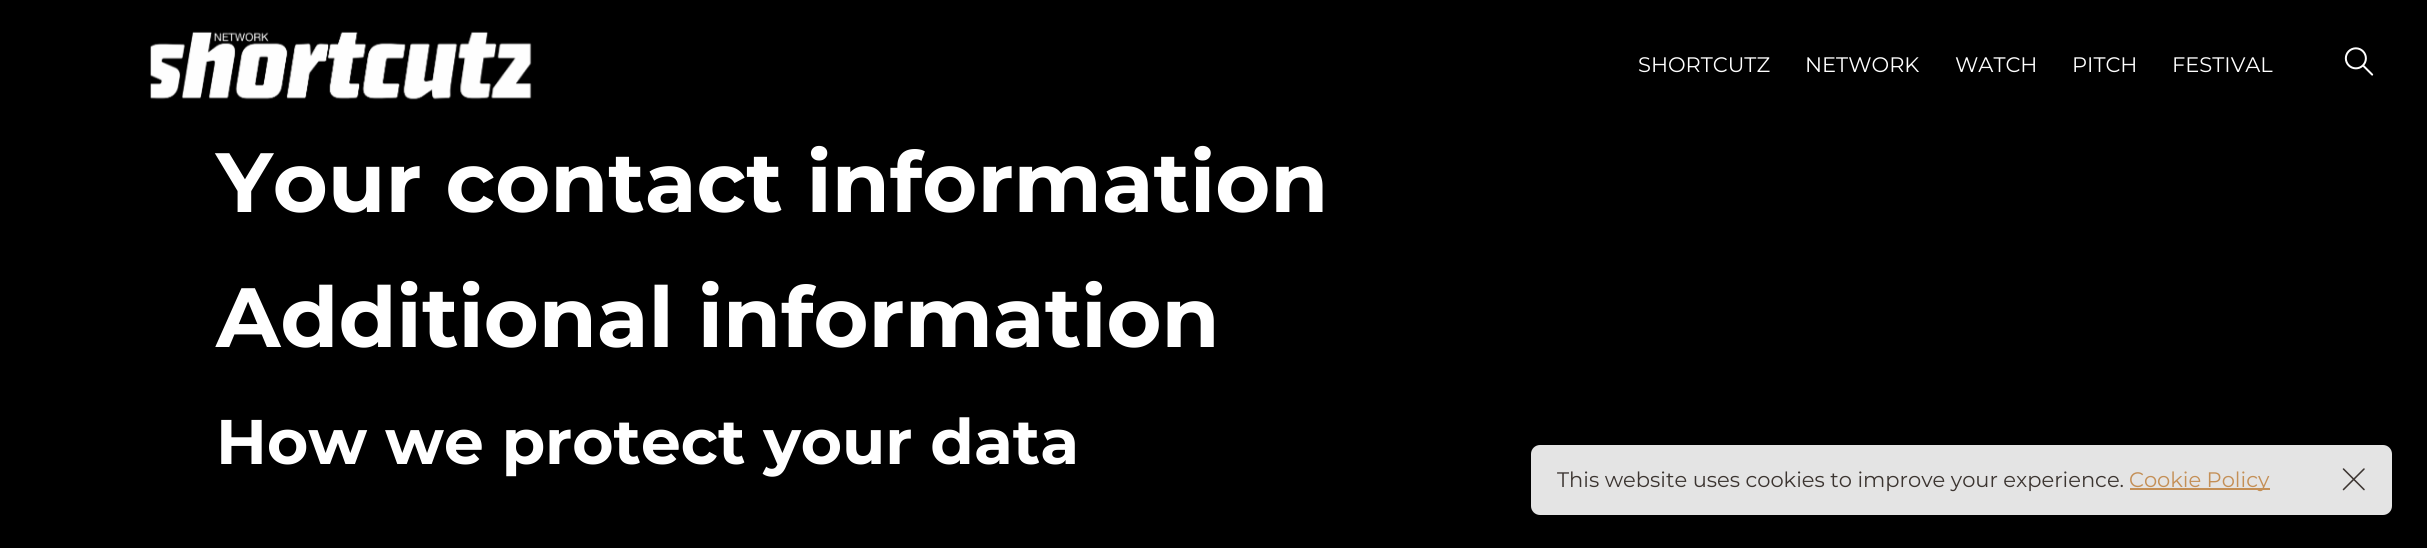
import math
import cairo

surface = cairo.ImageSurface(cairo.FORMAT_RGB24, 2427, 548)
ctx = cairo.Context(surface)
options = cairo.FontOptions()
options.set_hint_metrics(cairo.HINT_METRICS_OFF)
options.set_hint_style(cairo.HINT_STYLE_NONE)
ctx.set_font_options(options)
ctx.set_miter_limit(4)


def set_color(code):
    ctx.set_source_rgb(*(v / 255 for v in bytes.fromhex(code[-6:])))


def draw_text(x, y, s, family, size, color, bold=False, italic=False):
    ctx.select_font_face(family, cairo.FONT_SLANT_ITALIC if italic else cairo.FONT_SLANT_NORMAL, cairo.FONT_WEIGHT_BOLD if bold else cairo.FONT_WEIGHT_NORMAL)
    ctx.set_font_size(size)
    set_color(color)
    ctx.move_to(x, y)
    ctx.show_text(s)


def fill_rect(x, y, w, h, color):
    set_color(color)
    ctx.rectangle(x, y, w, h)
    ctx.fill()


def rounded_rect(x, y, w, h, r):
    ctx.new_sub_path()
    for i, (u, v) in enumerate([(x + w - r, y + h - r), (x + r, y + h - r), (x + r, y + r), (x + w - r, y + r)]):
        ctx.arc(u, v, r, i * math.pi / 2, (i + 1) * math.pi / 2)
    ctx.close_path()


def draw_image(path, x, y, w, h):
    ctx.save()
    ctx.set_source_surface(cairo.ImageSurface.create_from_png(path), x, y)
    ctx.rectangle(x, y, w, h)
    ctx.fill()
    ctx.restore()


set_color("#000000")
ctx.paint()
draw_image("assets/img1.png", 150, 31, 382, 69)
draw_text(1638, 72, "SHORTCUTZ", "Montserrat", 21, "#ffffff")
draw_text(1805, 72, "NETWORK", "Montserrat", 21, "#ffffff")
draw_text(1955, 72, "WATCH", "Montserrat", 21, "#ffffff")
draw_text(2072, 72, "PITCH", "Montserrat", 21, "#ffffff")
draw_text(2172, 72, "FESTIVAL", "Montserrat", 21, "#ffffff")
draw_image("assets/img2.png", 2344, 47, 30, 29)
draw_text(216, 212, "Your contact information", "Montserrat", 84, "#ffffff", bold=True)
draw_text(216, 347, "Additional information", "Montserrat", 84, "#ffffff", bold=True)
draw_text(216, 464, "How we protect your data", "Montserrat", 63, "#ffffff", bold=True)
set_color("#e4e4e4")
rounded_rect(1531, 445, 861, 70, 9)
ctx.fill()
draw_text(1557, 487, "This website uses cookies to improve your experience.", "Montserrat", 21, "#3c3531")
fill_rect(2130, 488, 140, 2, "#c48f56")
draw_text(2129, 487, "Cookie Policy", "Montserrat", 21, "#c48f56")
draw_image("assets/img3.png", 2342, 468, 23, 23)
surface.write_to_png("output.png")
